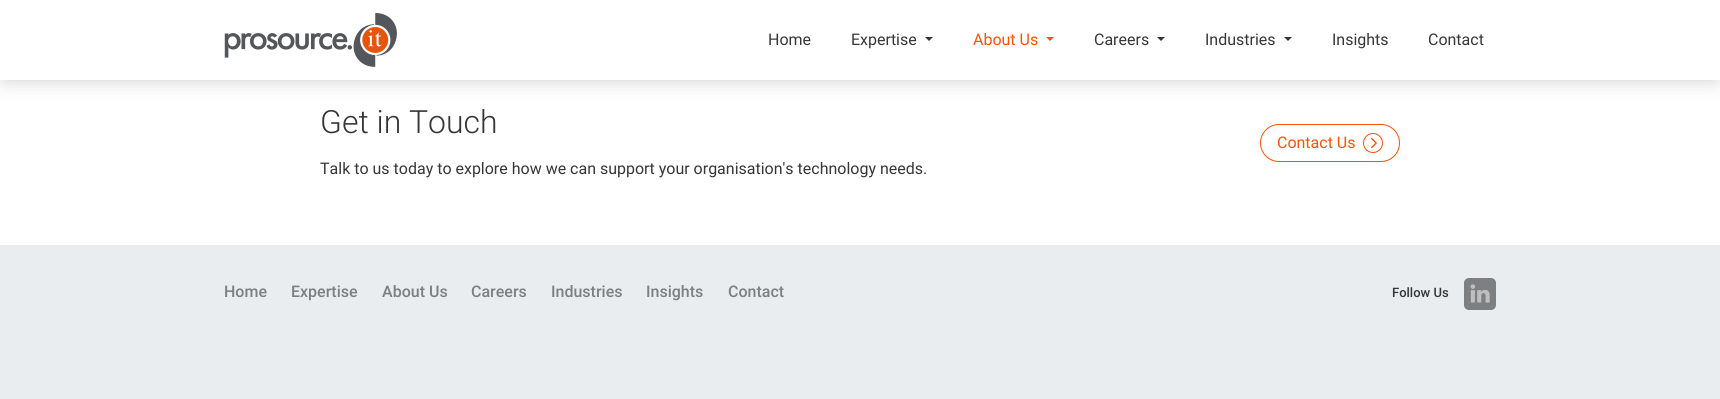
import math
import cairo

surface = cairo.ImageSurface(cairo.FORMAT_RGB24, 1720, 399)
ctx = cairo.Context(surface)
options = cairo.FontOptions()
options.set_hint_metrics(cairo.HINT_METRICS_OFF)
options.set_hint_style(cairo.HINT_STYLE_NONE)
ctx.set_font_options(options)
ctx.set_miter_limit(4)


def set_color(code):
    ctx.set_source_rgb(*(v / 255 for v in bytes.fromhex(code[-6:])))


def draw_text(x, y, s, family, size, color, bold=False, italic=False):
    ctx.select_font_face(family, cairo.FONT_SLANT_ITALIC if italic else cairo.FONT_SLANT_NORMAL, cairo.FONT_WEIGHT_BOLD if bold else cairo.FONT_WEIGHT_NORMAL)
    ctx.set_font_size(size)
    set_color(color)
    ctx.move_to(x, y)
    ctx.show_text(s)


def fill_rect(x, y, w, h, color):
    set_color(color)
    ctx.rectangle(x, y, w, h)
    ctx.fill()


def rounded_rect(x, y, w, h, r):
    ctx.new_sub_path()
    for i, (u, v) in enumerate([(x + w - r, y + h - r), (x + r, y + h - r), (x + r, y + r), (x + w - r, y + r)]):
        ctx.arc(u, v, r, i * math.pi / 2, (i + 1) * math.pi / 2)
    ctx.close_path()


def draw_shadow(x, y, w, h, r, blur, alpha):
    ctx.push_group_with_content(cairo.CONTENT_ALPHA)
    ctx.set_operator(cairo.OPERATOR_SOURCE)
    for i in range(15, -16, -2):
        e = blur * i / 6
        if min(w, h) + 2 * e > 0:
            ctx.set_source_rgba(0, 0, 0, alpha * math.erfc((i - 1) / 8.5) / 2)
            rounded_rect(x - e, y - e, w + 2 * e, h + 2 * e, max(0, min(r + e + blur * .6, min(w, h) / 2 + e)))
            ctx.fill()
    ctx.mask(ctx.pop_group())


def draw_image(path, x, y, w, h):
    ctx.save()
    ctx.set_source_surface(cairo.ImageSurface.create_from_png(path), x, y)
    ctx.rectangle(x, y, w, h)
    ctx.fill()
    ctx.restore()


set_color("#e9edf0")
ctx.paint()
fill_rect(0, 80, 1720, 165, "#ffffff")
set_color("#000000")
draw_shadow(5, 10, 1710, 70, 0, 10, 0.2)
fill_rect(0, 0, 1720, 80, "#ffffff")
draw_image("assets/img1.png", 224, 13, 173, 54)
draw_text(768, 45, "Home", "Roboto", 16, "#363636")
draw_text(851, 45, "Expertise", "Roboto", 16, "#363636")
ctx.new_path()
ctx.move_to(925, 37)
ctx.line_to(933, 37)
ctx.line_to(929, 41)
ctx.close_path()
ctx.fill()
draw_text(973, 45, "About Us", "Roboto", 16, "#ff5100")
ctx.new_path()
ctx.move_to(1046, 37)
ctx.line_to(1054, 37)
ctx.line_to(1050, 41)
ctx.close_path()
ctx.fill()
draw_text(1094, 45, "Careers", "Roboto", 16, "#363636")
ctx.new_path()
ctx.move_to(1157, 37)
ctx.line_to(1165, 37)
ctx.line_to(1161, 41)
ctx.close_path()
ctx.fill()
draw_text(1205, 45, "Industries", "Roboto", 16, "#363636")
ctx.new_path()
ctx.move_to(1284, 37)
ctx.line_to(1292, 37)
ctx.line_to(1288, 41)
ctx.close_path()
ctx.fill()
draw_text(1332, 45, "Insights", "Roboto", 16, "#363636")
draw_text(1428, 45, "Contact", "Roboto", 16, "#363636")
draw_text(320, 133, "Get in Touch", "Roboto Light", 32, "#363636")
draw_text(320, 174, "Talk to us today to explore how we can support your organisation's technology needs.", "Roboto", 16, "#363636")
rounded_rect(1260.5, 124.5, 139, 37, 18.5)
set_color("#ff5100")
ctx.set_line_width(1)
ctx.stroke()
draw_text(1277, 148, "Contact Us", "Roboto", 16, "#ff5100")
ctx.new_path()
ctx.arc(1373, 143, 9.5, 0, 2 * math.pi)
ctx.stroke()
draw_image("assets/img2.png", 1371, 137, 6, 12)
draw_text(224, 297, "Home", "Roboto Medium", 16, "#7d7f81")
draw_text(291, 297, "Expertise", "Roboto Medium", 16, "#7d7f81")
draw_text(382, 297, "About Us", "Roboto Medium", 16, "#7d7f81")
draw_text(471, 297, "Careers", "Roboto Medium", 16, "#7d7f81")
draw_text(551, 297, "Industries", "Roboto Medium", 16, "#7d7f81")
draw_text(646, 297, "Insights", "Roboto Medium", 16, "#7d7f81")
draw_text(728, 297, "Contact", "Roboto Medium", 16, "#7d7f81")
draw_text(1392, 297, "Follow Us", "Roboto Medium", 13, "#363636")
draw_image("assets/img3.png", 1464, 278, 32, 32)
surface.write_to_png("output.png")
